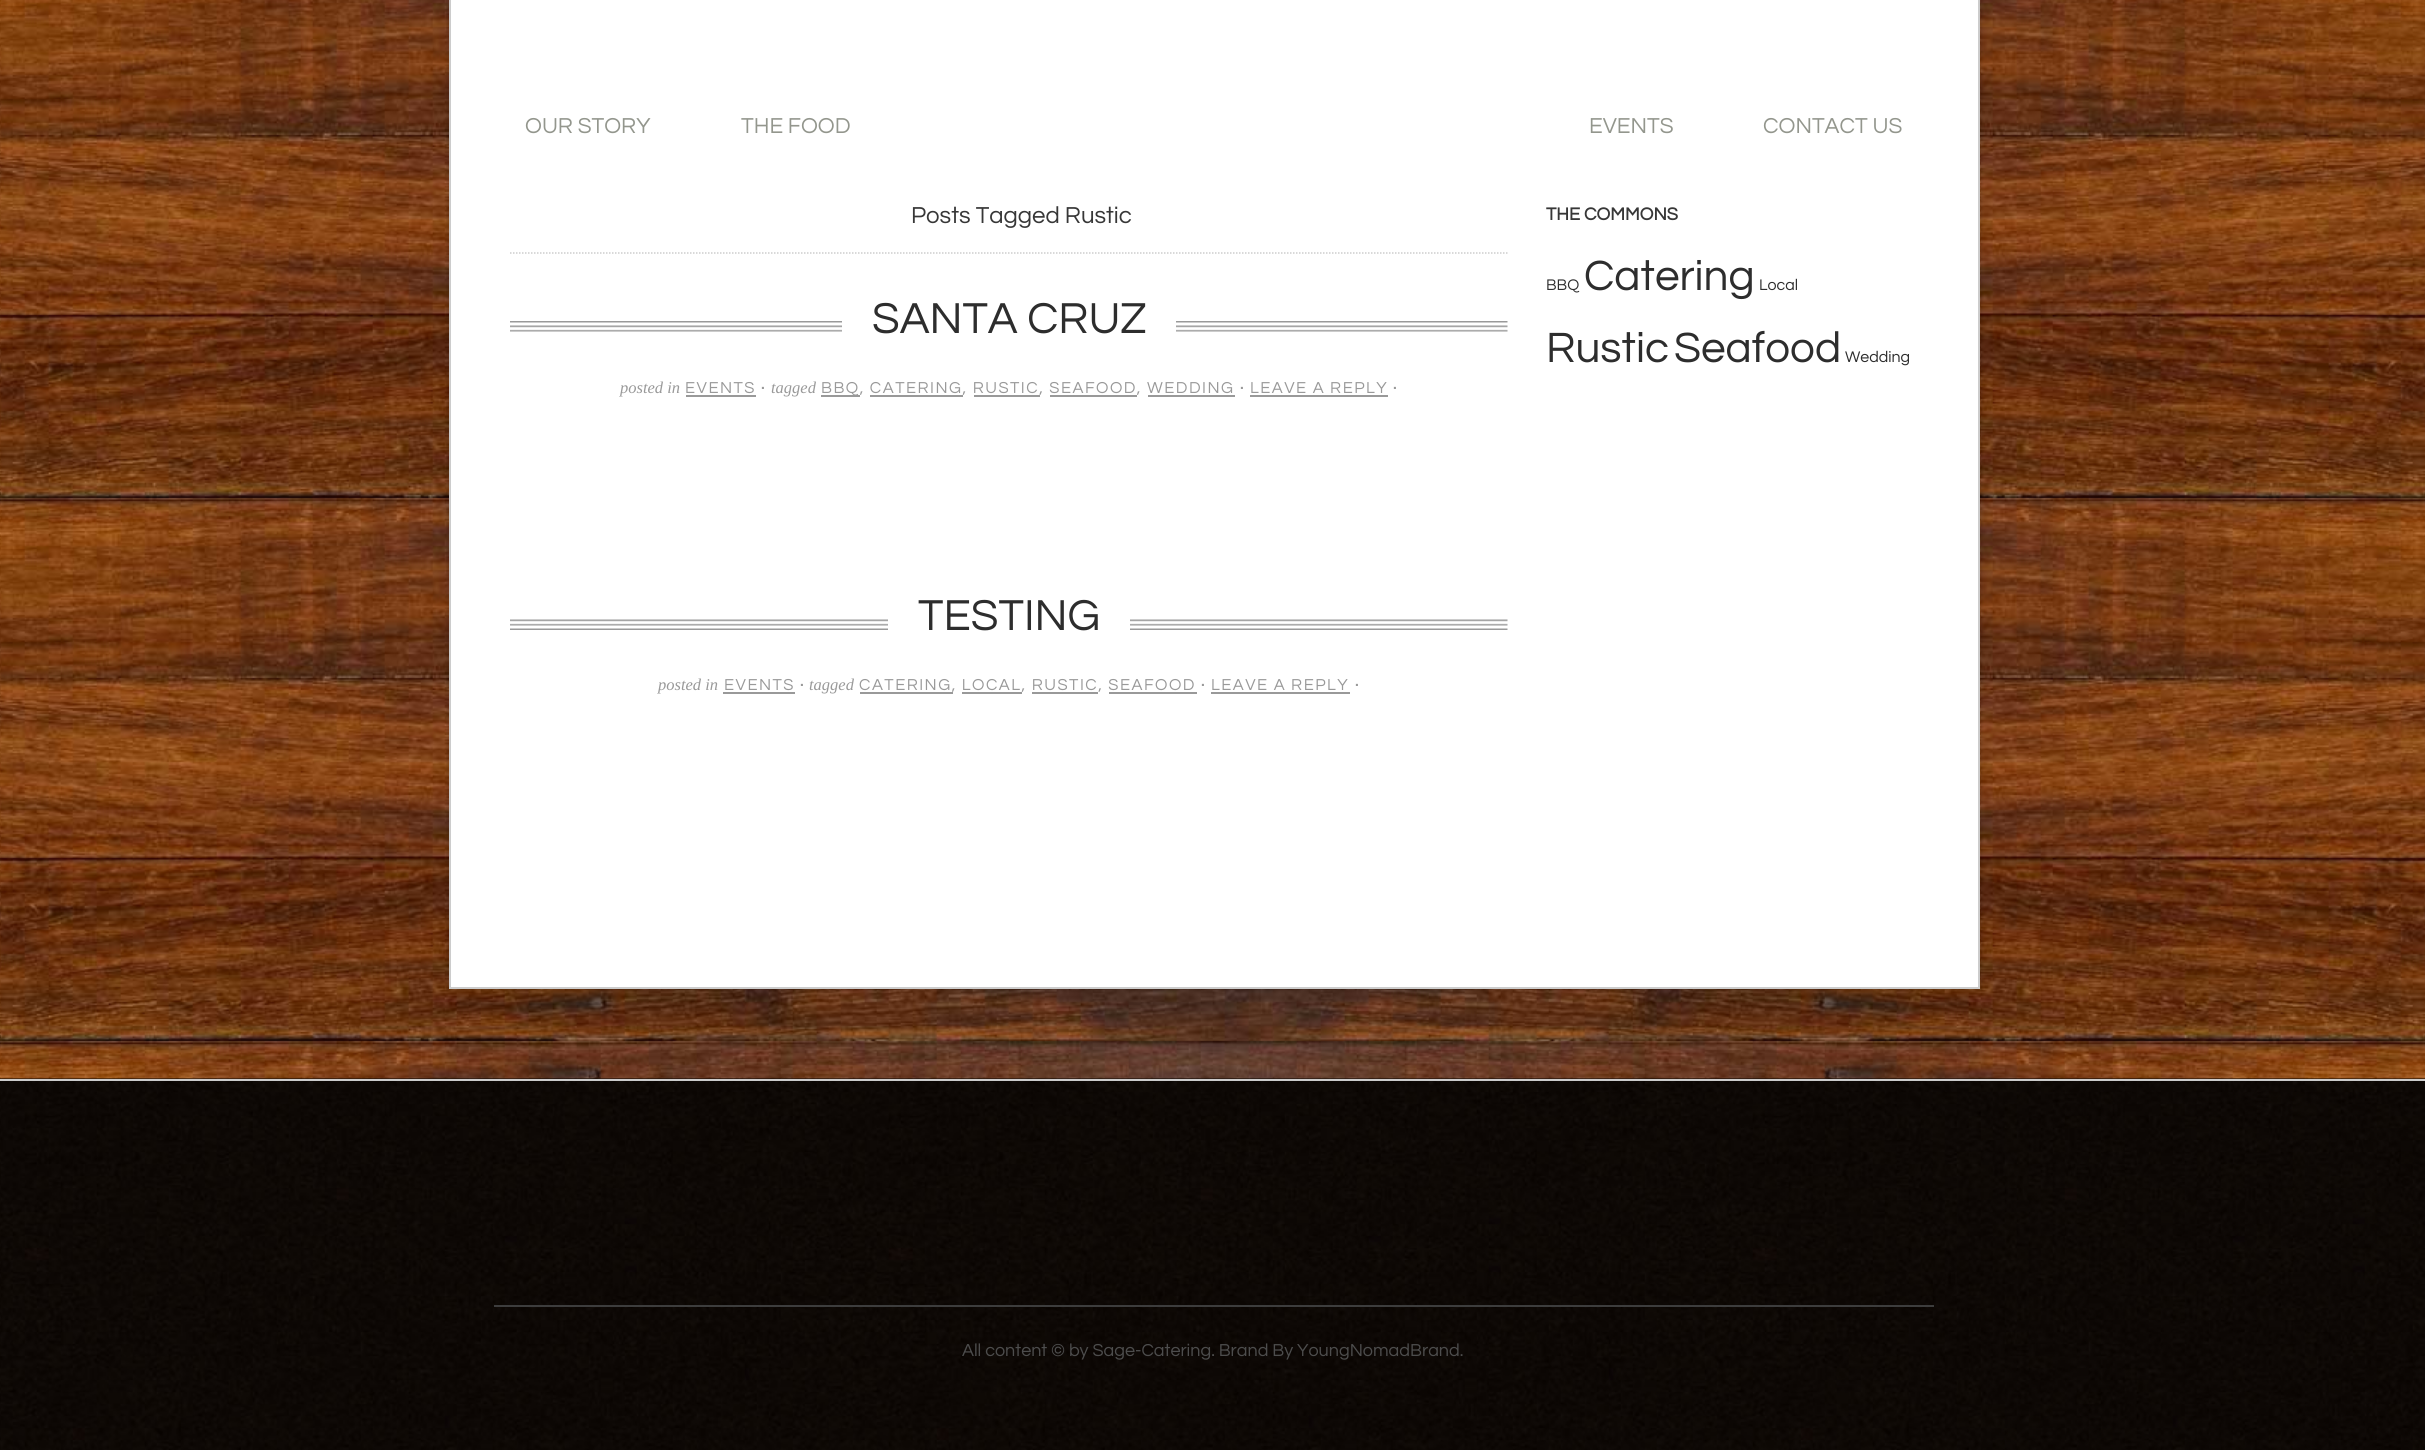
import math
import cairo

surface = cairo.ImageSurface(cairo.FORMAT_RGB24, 2425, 1450)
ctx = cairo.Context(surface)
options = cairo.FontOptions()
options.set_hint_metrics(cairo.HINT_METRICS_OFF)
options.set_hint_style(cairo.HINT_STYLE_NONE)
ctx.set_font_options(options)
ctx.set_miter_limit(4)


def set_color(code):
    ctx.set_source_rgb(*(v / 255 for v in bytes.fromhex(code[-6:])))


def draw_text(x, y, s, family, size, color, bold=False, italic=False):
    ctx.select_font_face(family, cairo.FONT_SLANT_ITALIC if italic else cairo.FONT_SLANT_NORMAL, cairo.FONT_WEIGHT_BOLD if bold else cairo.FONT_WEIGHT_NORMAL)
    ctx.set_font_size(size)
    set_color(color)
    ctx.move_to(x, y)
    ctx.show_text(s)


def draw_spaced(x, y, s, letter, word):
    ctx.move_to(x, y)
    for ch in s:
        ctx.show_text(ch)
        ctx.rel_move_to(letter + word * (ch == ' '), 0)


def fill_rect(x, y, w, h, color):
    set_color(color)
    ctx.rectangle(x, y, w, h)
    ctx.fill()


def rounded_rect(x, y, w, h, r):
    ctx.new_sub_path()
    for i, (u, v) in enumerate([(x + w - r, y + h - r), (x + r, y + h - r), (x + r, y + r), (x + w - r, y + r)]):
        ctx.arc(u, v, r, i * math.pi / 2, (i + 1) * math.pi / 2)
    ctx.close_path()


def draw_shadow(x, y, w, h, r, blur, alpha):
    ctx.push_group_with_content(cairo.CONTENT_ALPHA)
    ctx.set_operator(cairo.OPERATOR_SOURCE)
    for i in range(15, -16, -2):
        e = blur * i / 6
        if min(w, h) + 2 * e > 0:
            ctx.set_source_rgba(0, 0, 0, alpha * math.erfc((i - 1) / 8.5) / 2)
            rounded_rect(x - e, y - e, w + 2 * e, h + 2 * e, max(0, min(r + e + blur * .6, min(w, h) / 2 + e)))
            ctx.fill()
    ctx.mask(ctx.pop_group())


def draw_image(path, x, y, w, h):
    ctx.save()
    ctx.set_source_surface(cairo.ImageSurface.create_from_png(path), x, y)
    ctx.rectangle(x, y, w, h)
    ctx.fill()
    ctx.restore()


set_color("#ffffff")
ctx.paint()
draw_image("assets/img1.png", 0, 0, 2425, 1079)
set_color("#000000")
draw_shadow(447, -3, 1535, 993, 0, 1, 0.1)
set_color("#ffffff")
ctx.rectangle(450, -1, 1529, 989)
ctx.fill_preserve()
set_color("#cccccc")
ctx.stroke()
draw_text(525, 133, "OUR STORY", "Questrial", 22.5, "#93968d")
draw_text(741, 133, "THE FOOD", "Questrial", 22.5, "#93968d")
draw_text(1589, 133, "EVENTS", "Questrial", 22.5, "#93968d")
draw_text(1763, 133, "CONTACT US", "Questrial", 22.5, "#93968d")
ctx.new_path()
ctx.move_to(510, 253)
ctx.line_to(1507.5, 253)
set_color("#cccccc")
ctx.set_line_width(1.5)
ctx.set_dash([1.5, 1.5])
ctx.stroke()
draw_text(911, 223, "Posts Tagged Rustic", "Questrial", 24, "#373737")
draw_image("assets/img2.png", 510, 321, 998, 11)
fill_rect(842, 321, 334, 11, "#ffffff")
draw_text(872, 333, "SANTA CRUZ", "Questrial", 45, "#2d2d2d")
draw_text(620, 393, "posted in", "Liberation Serif", 16.5, "#999999", italic=True)
ctx.select_font_face("Questrial")
draw_spaced(685, 393, "EVENTS", 1.5, 0)
fill_rect(686, 395, 70, 2, "#999999")
ctx.select_font_face("Questrial", cairo.FONT_SLANT_NORMAL, cairo.FONT_WEIGHT_BOLD)
draw_spaced(761, 393, "·", 1.5, 0)
draw_text(771, 393, "tagged", "Liberation Serif", 16.5, "#999999", italic=True)
fill_rect(821, 395, 39, 2, "#999999")
ctx.select_font_face("Questrial")
draw_spaced(821, 393, "BBQ, CATERING, RUSTIC, SEAFOOD, WEDDING", 1.5, 0)
fill_rect(870, 395, 93, 2, "#999999")
fill_rect(974, 395, 66, 2, "#999999")
fill_rect(1050, 395, 87, 2, "#999999")
fill_rect(1148, 395, 87, 2, "#999999")
ctx.select_font_face("Questrial", cairo.FONT_SLANT_NORMAL, cairo.FONT_WEIGHT_BOLD)
draw_spaced(1240, 393, "·", 1.5, 0)
ctx.select_font_face("Questrial")
draw_spaced(1250, 393, "LEAVE A REPLY", 1.5, 0)
fill_rect(1250, 395, 138, 2, "#999999")
ctx.select_font_face("Questrial", cairo.FONT_SLANT_NORMAL, cairo.FONT_WEIGHT_BOLD)
draw_spaced(1393, 393, "·", 1.5, 0)
draw_image("assets/img3.png", 510, 619, 998, 11)
fill_rect(888, 619, 242, 11, "#ffffff")
draw_text(918, 630, "TESTING", "Questrial", 45, "#2d2d2d")
draw_text(658, 690, "posted in", "Liberation Serif", 16.5, "#999999", italic=True)
ctx.select_font_face("Questrial")
draw_spaced(724, 690, "EVENTS", 1.5, 0)
fill_rect(723, 692, 72, 2, "#999999")
ctx.select_font_face("Questrial", cairo.FONT_SLANT_NORMAL, cairo.FONT_WEIGHT_BOLD)
draw_spaced(800, 690, "·", 1.5, 0)
draw_text(809, 690, "tagged", "Liberation Serif", 16.5, "#999999", italic=True)
ctx.select_font_face("Questrial")
draw_spaced(859, 690, "CATERING, LOCAL, RUSTIC, SEAFOOD", 1.5, 0)
fill_rect(860, 692, 93, 2, "#999999")
fill_rect(962, 692, 60, 2, "#999999")
fill_rect(1032, 692, 66, 2, "#999999")
fill_rect(1109, 692, 88, 2, "#999999")
ctx.select_font_face("Questrial", cairo.FONT_SLANT_NORMAL, cairo.FONT_WEIGHT_BOLD)
draw_spaced(1201, 690, "·", 1.5, 0)
ctx.select_font_face("Questrial")
draw_spaced(1211, 690, "LEAVE A REPLY", 1.5, 0)
fill_rect(1211, 692, 139, 2, "#999999")
ctx.select_font_face("Questrial", cairo.FONT_SLANT_NORMAL, cairo.FONT_WEIGHT_BOLD)
draw_spaced(1355, 690, "·", 1.5, 0)
draw_text(1546, 220, "THE COMMONS", "Questrial", 18.25, "#373737", bold=True)
draw_text(1546, 290, "BBQ", "Questrial", 16, "#2d2d2d")
draw_text(1584, 290, "Catering", "Questrial", 44, "#2d2d2d")
draw_text(1759, 290, "Local", "Questrial", 16, "#2d2d2d")
draw_text(1546, 362, "Rustic", "Questrial", 44, "#2d2d2d")
draw_text(1674, 362, "Seafood", "Questrial", 44, "#2d2d2d")
draw_text(1845, 362, "Wedding", "Questrial", 16, "#2d2d2d")
draw_image("assets/img4.png", 0, 1078, 2425, 372)
fill_rect(0, 1079, 2425, 2, "#cccccc")
fill_rect(494, 1305, 1440, 2, "#3d3d3d")
draw_text(962, 1356, "All content © by Sage-Catering. Brand By YoungNomadBrand.", "Questrial", 18, "#4d4d4d")
surface.write_to_png("output.png")
